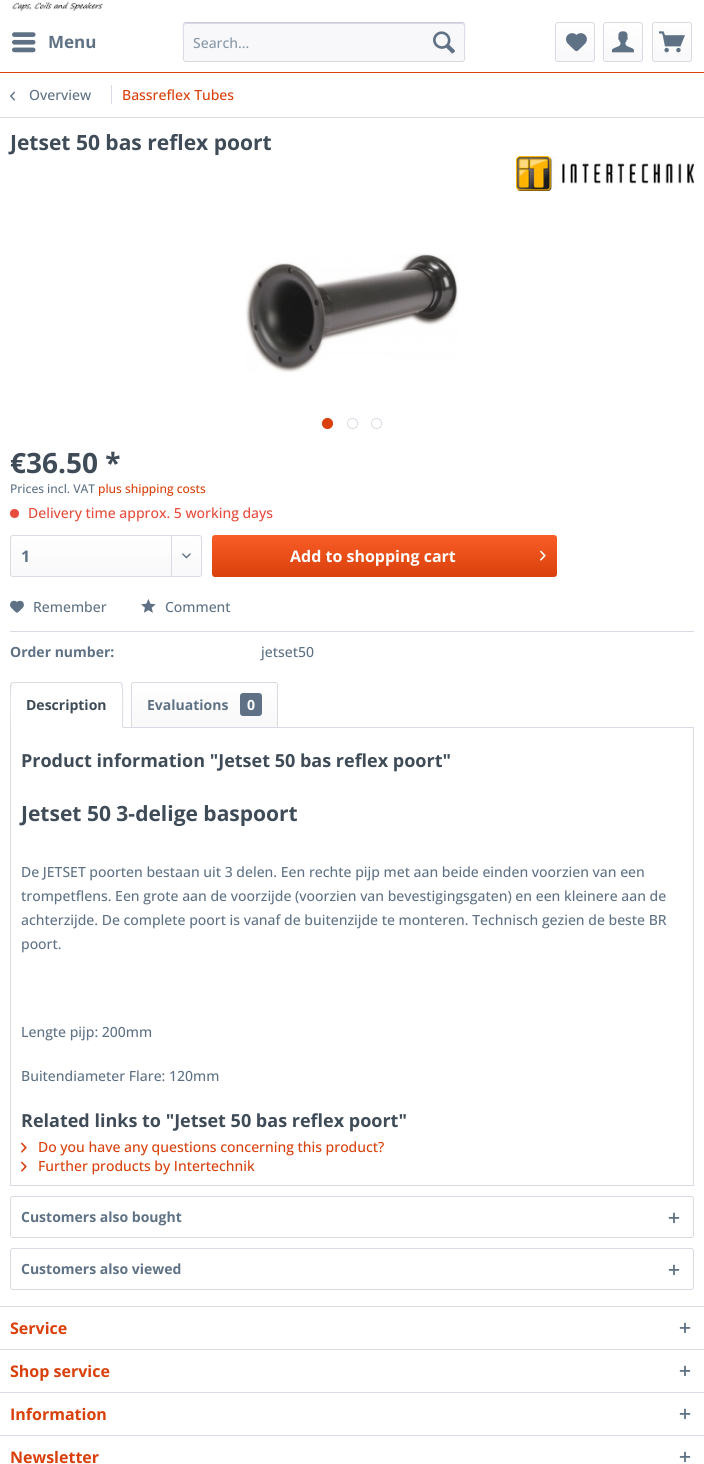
import math
import cairo

surface = cairo.ImageSurface(cairo.FORMAT_RGB24, 704, 1464)
ctx = cairo.Context(surface)
options = cairo.FontOptions()
options.set_hint_metrics(cairo.HINT_METRICS_OFF)
options.set_hint_style(cairo.HINT_STYLE_NONE)
ctx.set_font_options(options)
ctx.set_miter_limit(4)


def set_color(code):
    ctx.set_source_rgb(*(v / 255 for v in bytes.fromhex(code[-6:])))


def draw_text(x, y, s, family, size, color, bold=False, italic=False):
    ctx.select_font_face(family, cairo.FONT_SLANT_ITALIC if italic else cairo.FONT_SLANT_NORMAL, cairo.FONT_WEIGHT_BOLD if bold else cairo.FONT_WEIGHT_NORMAL)
    ctx.set_font_size(size)
    set_color(color)
    ctx.move_to(x, y)
    ctx.show_text(s)


def fill_rect(x, y, w, h, color):
    set_color(color)
    ctx.rectangle(x, y, w, h)
    ctx.fill()


def rounded_rect(x, y, w, h, r):
    ctx.new_sub_path()
    for i, (u, v) in enumerate([(x + w - r, y + h - r), (x + r, y + h - r), (x + r, y + r), (x + w - r, y + r)]):
        ctx.arc(u, v, r, i * math.pi / 2, (i + 1) * math.pi / 2)
    ctx.close_path()


def draw_image(path, x, y, w, h):
    ctx.save()
    ctx.set_source_surface(cairo.ImageSurface.create_from_png(path), x, y)
    ctx.rectangle(x, y, w, h)
    ctx.fill()
    ctx.restore()


set_color("#ffffff")
ctx.paint()
fill_rect(0, 72, 704, 1, "#d9400b")
draw_image("assets/img1.png", 12, 2, 91, 10)
draw_image("assets/img2.png", 12, 32, 24, 21)
draw_text(48, 48, "Menu", "Open Sans", 17, "#5f7285", bold=True)
set_color("#f8f8fa")
rounded_rect(183, 22, 282, 40, 3)
ctx.fill()
set_color("#dadae5")
ctx.new_path()
ctx.move_to(186, 24)
ctx.line_to(462, 24)
ctx.curve_to(463, 24, 464, 25, 464, 26)
ctx.line_to(464, 24)
ctx.line_to(462, 23)
ctx.line_to(186, 23)
ctx.curve_to(184, 23, 184, 25, 184, 26)
ctx.curve_to(184, 25, 185, 24, 186, 24)
ctx.close_path()
ctx.fill()
ctx.new_path()
ctx.move_to(184, 23)
ctx.line_to(186, 22.5)
ctx.line_to(462, 22.5)
ctx.line_to(464, 23)
set_color("#cbcbdb")
ctx.set_line_width(1)
ctx.stroke()
ctx.new_path()
ctx.move_to(464, 23)
ctx.curve_to(465.5, 25, 464.5, 39, 464.5, 42)
ctx.line_to(464.5, 53.5)
ctx.curve_to(464.5, 55, 466, 61.5, 462, 61.5)
ctx.line_to(186, 61.5)
ctx.curve_to(182, 61.5, 183.5, 55, 183.5, 53.5)
ctx.line_to(183.5, 42)
ctx.curve_to(183.5, 39, 182.5, 25, 184, 23)
set_color("#dadae5")
ctx.stroke()
draw_text(193, 48, "Search...", "Open Sans Medium", 14, "#8798a9")
draw_image("assets/img3.png", 433, 31, 22, 23)
gradient = cairo.LinearGradient(575, 23, 575, 61)
gradient.add_color_stop_rgba(0, 1, 1, 1, 1)
gradient.add_color_stop_rgba(1, 0.973, 0.973, 0.98, 1)
ctx.set_source(gradient)
rounded_rect(556, 23, 38, 38, 2)
ctx.fill()
rounded_rect(555.5, 22.5, 39, 39, 2.5)
set_color("#dadae5")
ctx.stroke()
draw_image("assets/img4.png", 566, 33, 21, 19)
gradient = cairo.LinearGradient(623, 23, 623, 61)
gradient.add_color_stop_rgba(0, 1, 1, 1, 1)
gradient.add_color_stop_rgba(1, 0.973, 0.973, 0.98, 1)
ctx.set_source(gradient)
rounded_rect(604, 23, 38, 38, 2)
ctx.fill()
rounded_rect(603.5, 22.5, 39, 39, 2.5)
set_color("#dadae5")
ctx.stroke()
draw_image("assets/img5.png", 612, 31, 22, 22)
gradient = cairo.LinearGradient(672, 23, 672, 61)
gradient.add_color_stop_rgba(0, 1, 1, 1, 1)
gradient.add_color_stop_rgba(1, 0.973, 0.973, 0.98, 1)
ctx.set_source(gradient)
rounded_rect(653, 23, 38, 38, 2)
ctx.fill()
rounded_rect(652.5, 22.5, 39, 39, 2.5)
set_color("#dadae5")
ctx.stroke()
draw_image("assets/img6.png", 659, 31, 26, 22)
fill_rect(0, 117, 704, 1, "#dadae5")
draw_image("assets/img7.png", 10, 91, 5, 10)
draw_text(29, 100, "Overview", "Open Sans Medium", 14, "#5f7285")
fill_rect(111, 85, 1, 19, "#dadae5")
draw_text(122, 100, "Bassreflex Tubes", "Open Sans Medium", 14, "#d9400b")
draw_text(10, 150, "Jetset 50 bas reflex poort", "Open Sans", 21, "#3f4c58", bold=True)
draw_image("assets/img8.png", 516, 156, 178, 35)
draw_image("assets/img9.png", 245, 253, 214, 120)
set_color("#d9400b")
ctx.arc(327.5, 423.5, 5, 0, 2 * math.pi)
ctx.fill_preserve()
ctx.stroke()
ctx.arc(352.5, 423.5, 5, 0, 2 * math.pi)
set_color("#dadae5")
ctx.stroke()
ctx.arc(376.5, 423.5, 5, 0, 2 * math.pi)
ctx.stroke()
draw_text(10, 473, "€36.50 *", "Open Sans", 28, "#3f4c58", bold=True)
draw_text(10, 493, "Prices incl. VAT", "Open Sans Medium", 12, "#5f7285")
draw_text(98, 493, "plus shipping costs", "Open Sans Medium", 12, "#d9400b")
set_color("#e74c3c")
ctx.new_path()
ctx.arc(14.5, 513.5, 4.5, 0, 2 * math.pi)
ctx.fill()
draw_text(28, 518, "Delivery time approx. 5 working days", "Open Sans Medium", 14, "#e74c3c")
gradient = cairo.LinearGradient(106, 536, 106, 576)
gradient.add_color_stop_rgba(0, 1, 1, 1, 1)
gradient.add_color_stop_rgba(1, 0.973, 0.973, 0.98, 1)
ctx.set_source(gradient)
rounded_rect(11, 536, 190, 40, 2)
ctx.fill()
rounded_rect(10.5, 535.5, 191, 41, 2.5)
set_color("#dadae5")
ctx.stroke()
draw_text(21, 562, "1", "Open Sans", 16, "#5f7285", bold=True)
fill_rect(171, 536, 1, 40, "#dadae5")
draw_image("assets/img10.png", 182, 553, 9, 6)
gradient = cairo.LinearGradient(385, 535, 385, 577)
gradient.add_color_stop_rgba(0, 0.98, 0.365, 0.153, 1)
gradient.add_color_stop_rgba(1, 0.851, 0.251, 0.043, 1)
ctx.set_source(gradient)
rounded_rect(212, 535, 345, 42, 3)
ctx.fill()
draw_text(290, 562, "Add to shopping cart", "Open Sans", 16, "#ffffff", bold=True)
draw_image("assets/img11.png", 540, 550, 6, 11)
fill_rect(10, 631, 684, 1, "#dadae5")
draw_image("assets/img12.png", 10, 600, 14, 13)
draw_text(33, 612, "Remember", "Open Sans Medium", 14, "#5f7285")
draw_image("assets/img13.png", 141, 599, 15, 14)
draw_text(165, 612, "Comment", "Open Sans Medium", 14, "#5f7285")
draw_text(10, 657, "Order number:", "Open Sans", 14, "#5f7285", bold=True)
draw_text(261, 657, "jetset50", "Open Sans Medium", 14, "#5f7285")
ctx.rectangle(10.5, 727.5, 683, 458)
set_color("#dadae5")
ctx.stroke()
set_color("#ffffff")
ctx.new_path()
ctx.move_to(13, 682)
ctx.line_to(120, 682)
ctx.curve_to(121.5, 682, 123, 683.5, 123, 685)
ctx.line_to(123, 728)
ctx.line_to(10, 728)
ctx.line_to(10, 685)
ctx.curve_to(10, 683.5, 11.5, 682, 13, 682)
ctx.close_path()
ctx.fill()
set_color("#dadae5")
ctx.new_path()
ctx.move_to(13, 682)
ctx.line_to(11, 683)
ctx.line_to(12, 684)
ctx.line_to(13, 683)
ctx.line_to(102, 683)
ctx.line_to(120, 683)
ctx.line_to(121, 684)
ctx.line_to(122, 683)
ctx.line_to(120, 682)
ctx.close_path()
ctx.fill()
ctx.new_path()
ctx.move_to(123, 728)
ctx.curve_to(123, 723, 124, 685, 122, 683)
ctx.line_to(121, 684)
ctx.curve_to(123, 685, 122, 722, 122, 727)
ctx.close_path()
ctx.fill()
set_color("#ffffff")
ctx.new_path()
ctx.move_to(123, 728)
ctx.line_to(122, 727)
ctx.line_to(11, 727)
ctx.line_to(10, 728)
ctx.close_path()
ctx.fill()
set_color("#dadae5")
ctx.new_path()
ctx.move_to(10, 728)
ctx.line_to(11, 727)
ctx.curve_to(11, 722, 10, 685, 12, 684)
ctx.line_to(11, 683)
ctx.line_to(10, 685)
ctx.close_path()
ctx.fill()
draw_text(26, 710, "Description", "Open Sans", 14, "#3f4c58", bold=True)
gradient = cairo.LinearGradient(205, 683, 205, 727)
gradient.add_color_stop_rgba(0, 1, 1, 1, 1)
gradient.add_color_stop_rgba(1, 0.973, 0.973, 0.98, 1)
ctx.set_source(gradient)
ctx.new_path()
ctx.move_to(134, 683)
ctx.line_to(275, 683)
ctx.curve_to(276, 683, 277, 684, 277, 685)
ctx.line_to(277, 727)
ctx.line_to(132, 727)
ctx.line_to(132, 685)
ctx.curve_to(132, 684, 133, 683, 134, 683)
ctx.close_path()
ctx.fill()
ctx.new_path()
ctx.move_to(134, 682.5)
ctx.line_to(275, 682.5)
ctx.curve_to(276.5, 682.5, 277.5, 683.5, 277.5, 685)
ctx.line_to(277.5, 727.5)
ctx.line_to(131.5, 727.5)
ctx.line_to(131.5, 685)
ctx.curve_to(131.5, 683.5, 132.5, 682.5, 134, 682.5)
ctx.close_path()
set_color("#dadae5")
ctx.stroke()
draw_text(147, 710, "Evaluations", "Open Sans", 14, "#5f7285", bold=True)
rounded_rect(240, 693, 22, 23, 3)
ctx.fill()
draw_text(247, 710, "0", "Open Sans", 14, "#ffffff", bold=True)
draw_text(21, 767, "Product information \"Jetset 50 bas reflex poort\"", "Open Sans", 18, "#3f4c58", bold=True)
draw_text(21, 821, "Jetset 50 3-delige baspoort", "Open Sans", 21, "#3f4c58", bold=True)
draw_text(21, 877, "De JETSET poorten bestaan uit 3 delen. Een rechte pijp met aan beide einden voorzien van een", "Open Sans Medium", 14, "#5f7285")
draw_text(21, 901, "trompetflens. Een grote aan de voorzijde (voorzien van bevestigingsgaten) en een kleinere aan de", "Open Sans Medium", 14, "#5f7285")
draw_text(21, 925, "achterzijde. De complete poort is vanaf de buitenzijde te monteren. Technisch gezien de beste BR", "Open Sans Medium", 14, "#5f7285")
draw_text(21, 949, "poort.", "Open Sans Medium", 14, "#5f7285")
draw_text(21, 1037, "Lengte pijp: 200mm", "Open Sans Medium", 14, "#5f7285")
draw_text(21, 1081, "Buitendiameter Flare: 120mm", "Open Sans Medium", 14, "#5f7285")
draw_text(21, 1127, "Related links to \"Jetset 50 bas reflex poort\"", "Open Sans", 18, "#3f4c58", bold=True)
draw_image("assets/img14.png", 21, 1142, 6, 11)
draw_text(38, 1152, "Do you have any questions concerning this product?", "Open Sans Medium", 14, "#d9400b")
draw_image("assets/img14.png", 21, 1161, 6, 11)
draw_text(38, 1171, "Further products by Intertechnik", "Open Sans Medium", 14, "#d9400b")
rounded_rect(10.5, 1196.5, 683, 41, 2.5)
set_color("#dadae5")
ctx.stroke()
draw_text(21, 1222, "Customers also bought", "Open Sans", 14, "#5f7285", bold=True)
draw_image("assets/img15.png", 668, 1212, 12, 12)
rounded_rect(10.5, 1248.5, 683, 41, 2.5)
set_color("#dadae5")
ctx.stroke()
draw_text(21, 1274, "Customers also viewed", "Open Sans", 14, "#5f7285", bold=True)
draw_image("assets/img15.png", 668, 1264, 12, 12)
fill_rect(0, 1306, 704, 1, "#dadae5")
draw_text(10, 1334, "Service", "Open Sans", 16, "#d9400b", bold=True)
draw_image("assets/img15.png", 679, 1322, 12, 12)
fill_rect(0, 1349, 704, 1, "#dadae5")
draw_text(10, 1377, "Shop service", "Open Sans", 16, "#d9400b", bold=True)
draw_image("assets/img15.png", 679, 1365, 12, 12)
fill_rect(0, 1392, 704, 1, "#dadae5")
draw_text(10, 1420, "Information", "Open Sans", 16, "#d9400b", bold=True)
draw_image("assets/img15.png", 679, 1408, 12, 12)
fill_rect(0, 1435, 704, 1, "#dadae5")
draw_text(10, 1463, "Newsletter", "Open Sans", 16, "#d9400b", bold=True)
draw_image("assets/img15.png", 679, 1451, 12, 12)
surface.write_to_png("output.png")
